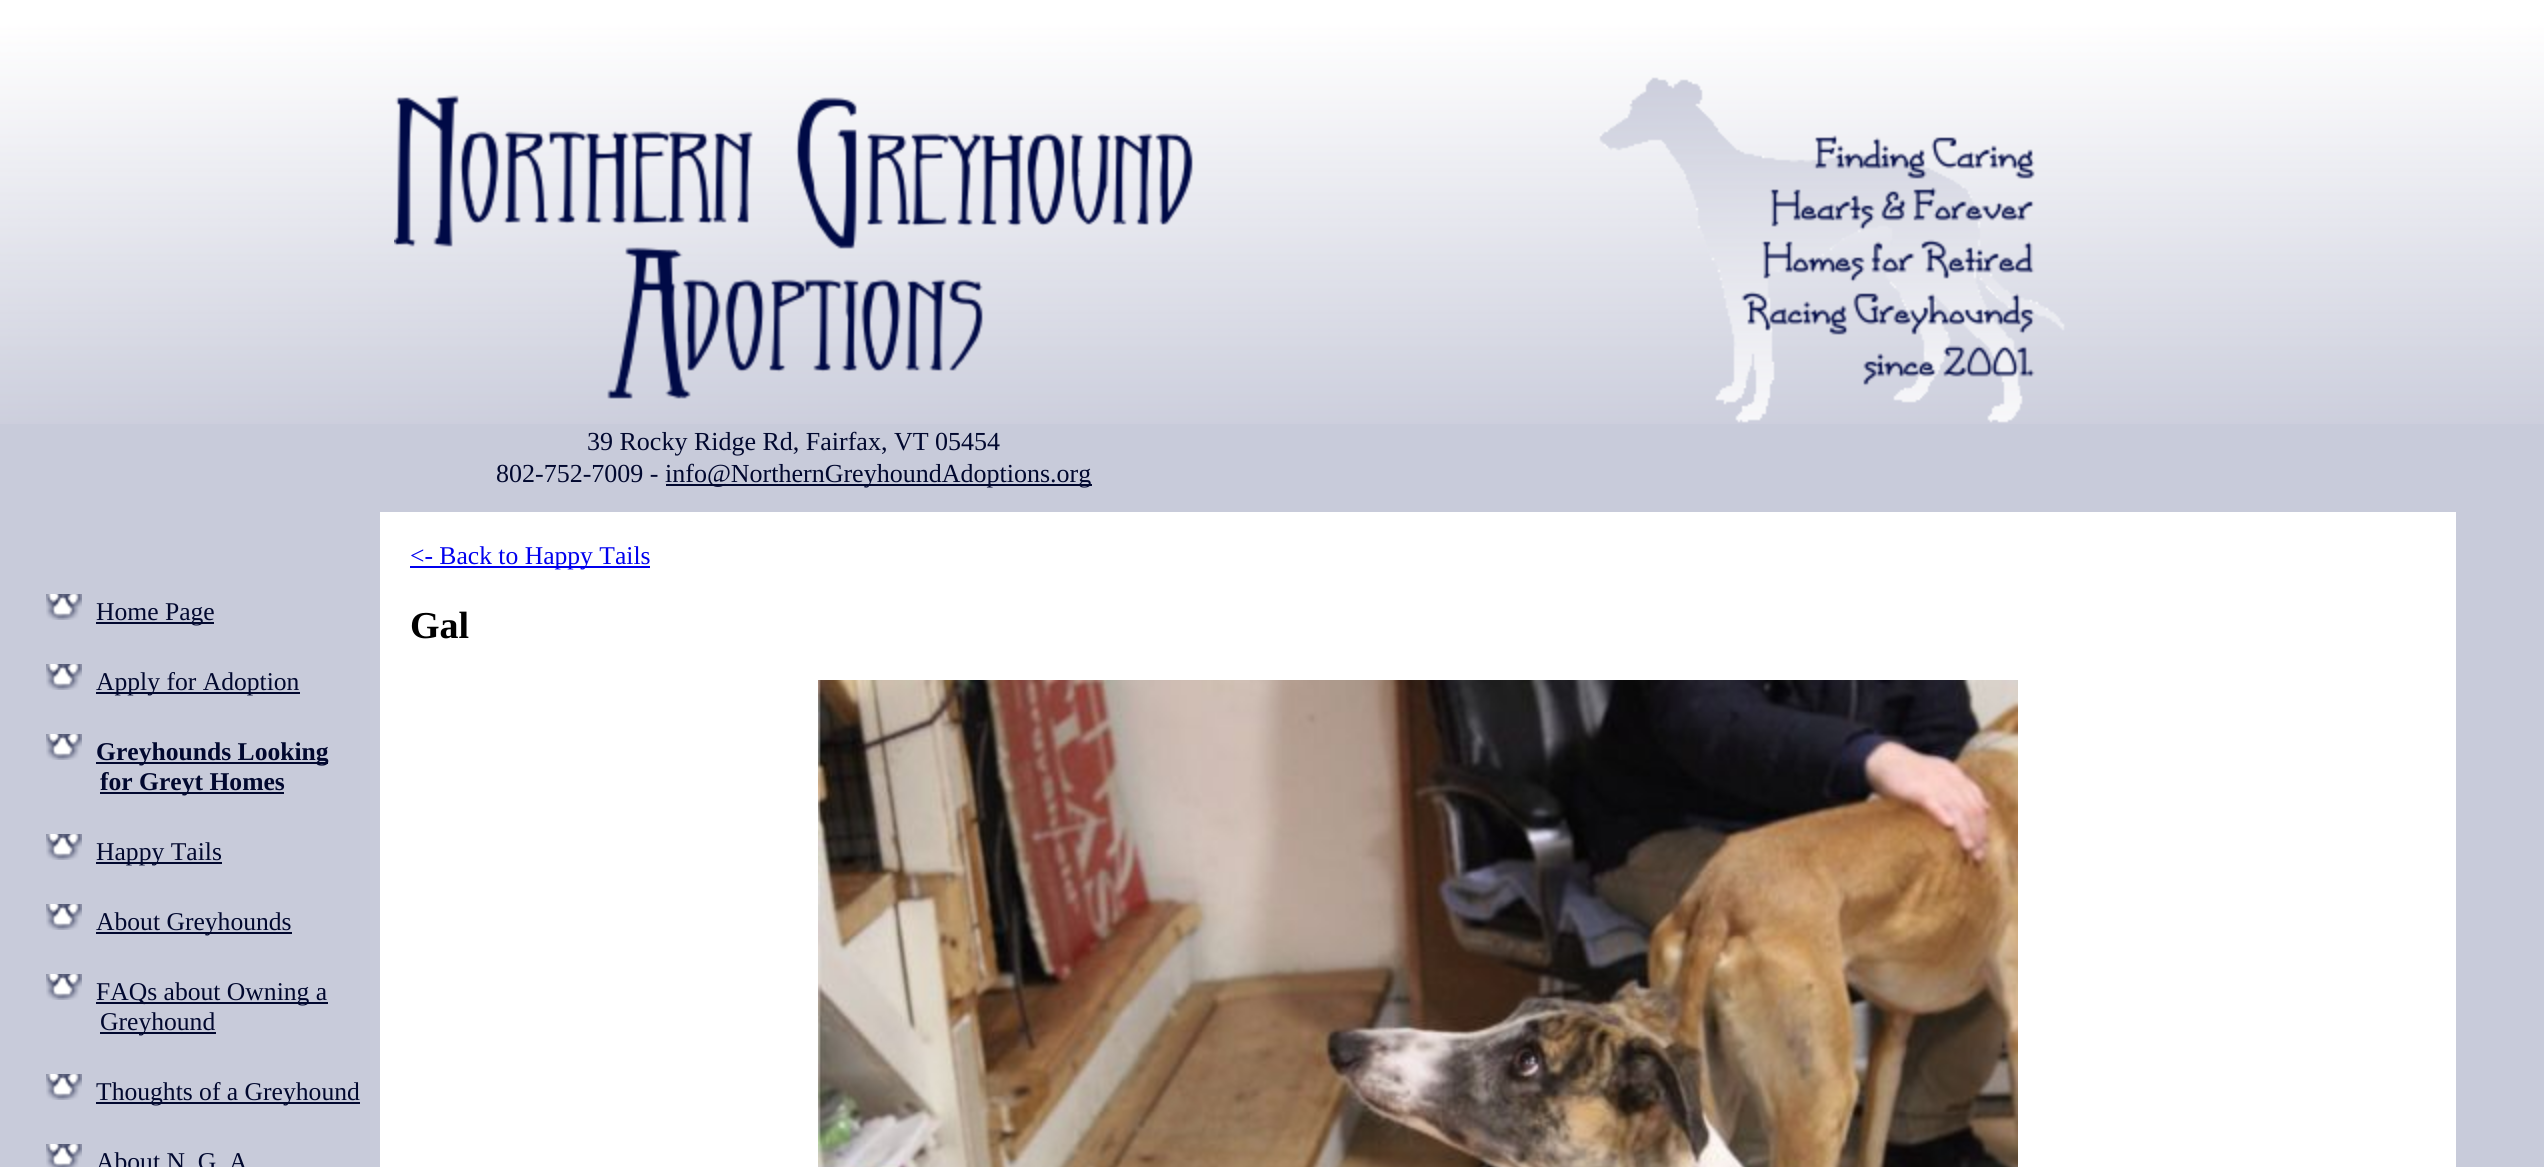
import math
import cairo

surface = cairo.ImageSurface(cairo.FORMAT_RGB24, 2544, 1167)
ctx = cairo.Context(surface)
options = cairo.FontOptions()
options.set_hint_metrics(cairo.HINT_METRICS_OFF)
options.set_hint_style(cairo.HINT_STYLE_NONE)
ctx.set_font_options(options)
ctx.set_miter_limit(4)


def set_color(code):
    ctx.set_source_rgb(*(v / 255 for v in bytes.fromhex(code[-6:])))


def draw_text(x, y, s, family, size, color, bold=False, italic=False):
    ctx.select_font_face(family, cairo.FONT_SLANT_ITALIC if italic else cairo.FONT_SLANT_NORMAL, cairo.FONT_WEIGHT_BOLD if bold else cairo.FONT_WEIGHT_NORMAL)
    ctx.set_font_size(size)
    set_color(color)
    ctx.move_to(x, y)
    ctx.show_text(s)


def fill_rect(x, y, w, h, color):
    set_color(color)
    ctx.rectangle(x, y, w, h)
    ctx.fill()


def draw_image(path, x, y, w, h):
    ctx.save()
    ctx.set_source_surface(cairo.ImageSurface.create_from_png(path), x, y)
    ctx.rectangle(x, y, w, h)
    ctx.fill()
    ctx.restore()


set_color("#c8cbda")
ctx.paint()
draw_image("assets/img1.png", 0, 0, 2544, 424)
draw_image("assets/img2.png", 1599, 77, 466, 346)
draw_image("assets/img3.png", 394, 95, 799, 304)
draw_text(587, 450, "39 Rocky Ridge Rd, Fairfax, VT 05454", "Liberation Serif", 26, "#01082f")
draw_text(496, 482, "802-752-7009 -", "Liberation Serif", 26, "#01082f")
fill_rect(666, 484, 426, 2, "#01082f")
draw_text(665, 482, "info@NorthernGreyhoundAdoptions.org", "Liberation Serif", 26, "#01082f")
fill_rect(380, 512, 2076, 655, "#ffffff")
fill_rect(410, 566, 240, 2, "#0000ee")
draw_text(410, 564, "<- Back to Happy Tails", "Liberation Serif", 25.6, "#0000ee")
draw_text(410, 638, "Gal", "Liberation Serif", 38, "#000000", bold=True)
draw_image("assets/img4.png", 818, 680, 1200, 487)
draw_image("assets/img5.png", 46, 594, 36, 26)
fill_rect(96, 622, 118, 2, "#01082f")
draw_text(96, 620, "Home Page", "Liberation Serif", 25.6, "#01082f")
draw_image("assets/img5.png", 46, 664, 36, 26)
fill_rect(96, 692, 204, 2, "#01082f")
draw_text(96, 690, "Apply for Adoption", "Liberation Serif", 25.6, "#01082f")
draw_image("assets/img5.png", 46, 734, 36, 26)
fill_rect(96, 762, 232, 2, "#01082f")
draw_text(96, 760, "Greyhounds Looking", "Liberation Serif", 25.6, "#01082f", bold=True)
fill_rect(100, 792, 184, 2, "#01082f")
draw_text(100, 790, "for Greyt Homes", "Liberation Serif", 25.6, "#01082f", bold=True)
draw_image("assets/img5.png", 46, 834, 36, 26)
fill_rect(96, 862, 126, 2, "#01082f")
draw_text(96, 860, "Happy Tails", "Liberation Serif", 25.6, "#01082f")
draw_image("assets/img5.png", 46, 904, 36, 26)
fill_rect(96, 932, 196, 2, "#01082f")
draw_text(96, 930, "About Greyhounds", "Liberation Serif", 25.6, "#01082f")
draw_image("assets/img5.png", 46, 974, 36, 26)
fill_rect(96, 1002, 232, 2, "#01082f")
draw_text(96, 1000, "FAQs about Owning a", "Liberation Serif", 25.6, "#01082f")
fill_rect(100, 1032, 116, 2, "#01082f")
draw_text(100, 1030, "Greyhound", "Liberation Serif", 25.6, "#01082f")
draw_image("assets/img5.png", 46, 1074, 36, 26)
fill_rect(96, 1102, 264, 2, "#01082f")
draw_text(96, 1100, "Thoughts of a Greyhound", "Liberation Serif", 25.6, "#01082f")
draw_image("assets/img6.png", 46, 1144, 36, 23)
draw_text(96, 1170, "About N. G. A", "Liberation Serif", 25.6, "#01082f")
surface.write_to_png("output.png")
